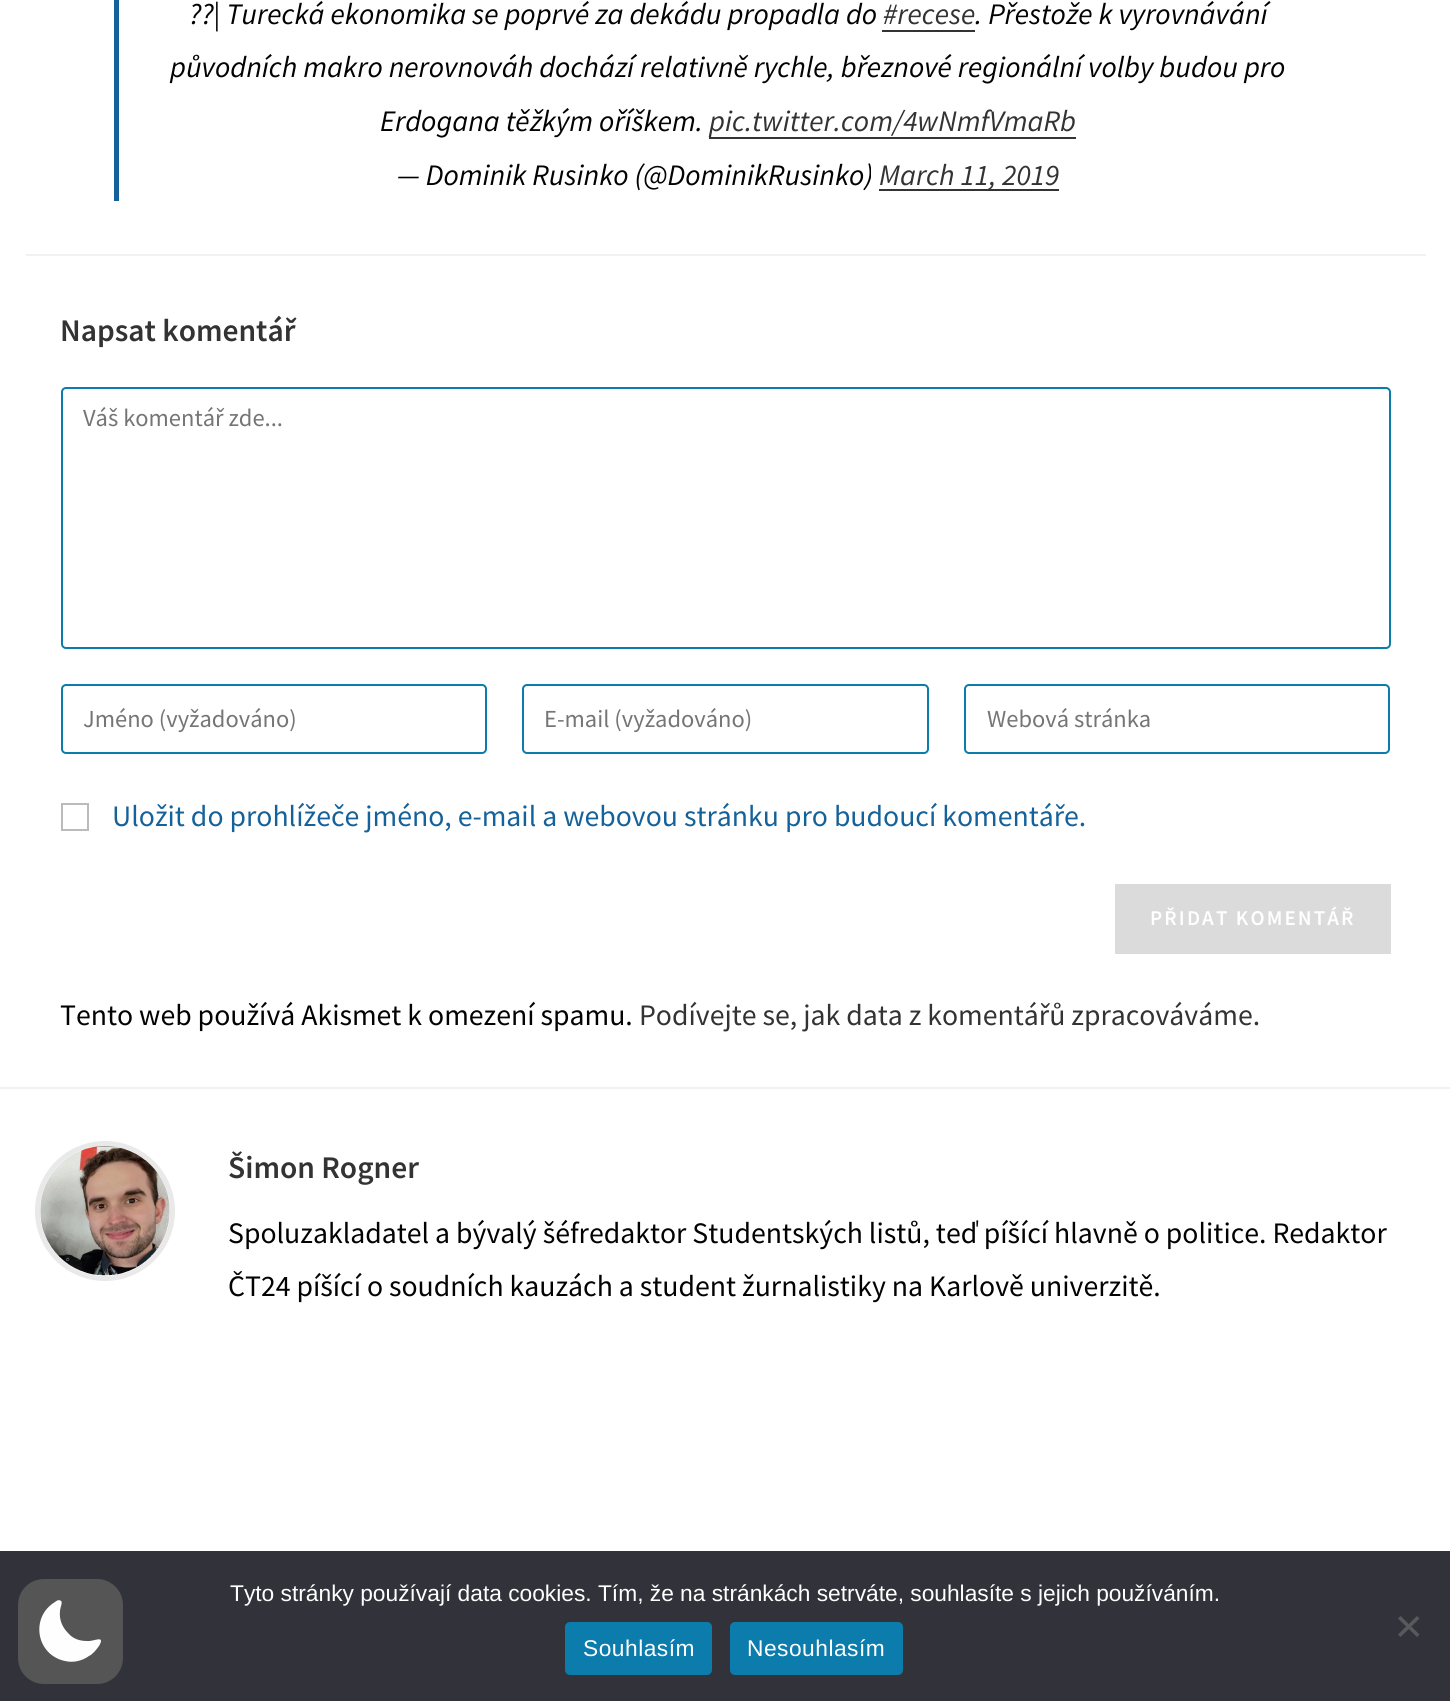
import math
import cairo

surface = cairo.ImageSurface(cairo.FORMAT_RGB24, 1450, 1701)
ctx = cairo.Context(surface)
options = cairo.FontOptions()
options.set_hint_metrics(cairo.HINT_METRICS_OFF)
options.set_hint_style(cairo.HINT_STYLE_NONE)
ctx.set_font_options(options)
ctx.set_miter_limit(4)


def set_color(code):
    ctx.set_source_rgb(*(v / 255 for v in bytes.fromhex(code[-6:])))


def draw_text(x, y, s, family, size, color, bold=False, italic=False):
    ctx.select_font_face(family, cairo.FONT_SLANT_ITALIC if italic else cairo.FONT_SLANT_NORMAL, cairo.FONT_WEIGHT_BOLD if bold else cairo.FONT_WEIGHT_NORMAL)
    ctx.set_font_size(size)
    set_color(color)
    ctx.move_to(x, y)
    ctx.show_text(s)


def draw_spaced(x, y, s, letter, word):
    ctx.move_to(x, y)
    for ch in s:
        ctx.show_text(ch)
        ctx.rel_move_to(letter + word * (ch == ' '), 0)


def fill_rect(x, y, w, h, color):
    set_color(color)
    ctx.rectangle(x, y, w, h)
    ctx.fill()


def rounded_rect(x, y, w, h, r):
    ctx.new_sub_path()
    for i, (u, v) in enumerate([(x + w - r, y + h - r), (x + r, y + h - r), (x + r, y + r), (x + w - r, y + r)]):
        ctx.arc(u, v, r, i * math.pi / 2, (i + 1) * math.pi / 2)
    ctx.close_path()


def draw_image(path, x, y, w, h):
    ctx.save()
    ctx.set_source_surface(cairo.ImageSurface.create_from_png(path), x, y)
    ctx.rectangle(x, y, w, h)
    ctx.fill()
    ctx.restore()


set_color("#ffffff")
ctx.paint()
fill_rect(114, 0, 5, 201, "#156199")
draw_text(189, 24, "??| Turecká ekonomika se poprvé za dekádu propadla do", "Source Sans Pro", 29.75, "#020202", italic=True)
draw_text(883, 24, "#recese", "Source Sans Pro", 29.75, "#333333", italic=True)
fill_rect(882, 30, 93, 2, "#333333")
draw_text(975, 24, ". Přestože k vyrovnávání", "Source Sans Pro", 29.75, "#020202", italic=True)
draw_text(170, 77, "původních makro nerovnováh dochází relativně rychle, březnové regionální volby budou pro", "Source Sans Pro", 29.75, "#020202", italic=True)
draw_text(380, 131, "Erdogana těžkým oříškem.", "Source Sans Pro", 29.75, "#020202", italic=True)
fill_rect(709, 137, 367, 2, "#333333")
draw_text(709, 131, "pic.twitter.com/4wNmfVmaRb", "Source Sans Pro", 29.75, "#333333", italic=True)
draw_text(397, 185, "— Dominik Rusinko (@DominikRusinko)", "Source Sans Pro", 29.75, "#020202", italic=True)
fill_rect(879, 189, 180, 2, "#333333")
draw_text(879, 185, "March 11, 2019", "Source Sans Pro", 29.75, "#333333", italic=True)
fill_rect(26, 254, 1400, 2, "#f1f1f1")
draw_text(60, 341, "Napsat komentář", "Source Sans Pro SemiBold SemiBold", 31.5, "#333333")
rounded_rect(62, 388, 1328, 260, 4)
set_color("#0b7cac")
ctx.stroke()
draw_text(83, 426, "Váš komentář zde...", "Source Sans Pro", 24.5, "#757575")
rounded_rect(62, 685, 424, 68, 4)
set_color("#0b7cac")
ctx.stroke()
draw_text(83, 727, "Jméno (vyžadováno)", "Source Sans Pro", 24.5, "#757575")
rounded_rect(523, 685, 405, 68, 4)
set_color("#0b7cac")
ctx.stroke()
draw_text(544, 727, "E-mail (vyžadováno)", "Source Sans Pro", 24.5, "#757575")
rounded_rect(965, 685, 424, 68, 4)
set_color("#0b7cac")
ctx.stroke()
draw_text(987, 727, "Webová stránka", "Source Sans Pro", 24.5, "#757575")
ctx.rectangle(62, 804, 26, 26)
set_color("#bbbbbb")
ctx.stroke()
draw_text(112, 826, "Uložit do prohlížeče jméno, e-mail a webovou stránku pro budoucí komentáře.", "Source Sans Pro", 29.75, "#156199")
fill_rect(1115, 884, 276, 70, "#dbdbdb")
ctx.select_font_face("Source Sans Pro SemiBold SemiBold")
ctx.set_font_size(21)
set_color("#ffffff")
draw_spaced(1150, 925, "PŘIDAT KOMENTÁŘ", 2.1, 0)
draw_text(60, 1025, "Tento web používá Akismet k omezení spamu.", "Source Sans Pro", 29.75, "#020202")
draw_text(639, 1025, "Podívejte se, jak data z komentářů zpracováváme.", "Source Sans Pro", 29.75, "#333333")
fill_rect(0, 1087, 1450, 2, "#f1f1f1")
ctx.new_path()
ctx.arc(105, 1211, 67.5, 0, 2 * math.pi)
set_color("#e9e9e9")
ctx.set_line_width(5)
ctx.stroke()
draw_image("assets/img1.png", 40, 1146, 130, 130)
draw_text(228, 1178, "Šimon Rogner", "Source Sans Pro SemiBold SemiBold", 31.5, "#333333")
draw_text(228, 1243, "Spoluzakladatel a bývalý šéfredaktor Studentských listů, teď píšící hlavně o politice. Redaktor", "Source Sans Pro", 29.75, "#020202")
draw_text(228, 1296, "ČT24 píšící o soudních kauzách a student žurnalistiky na Karlově univerzitě.", "Source Sans Pro", 29.75, "#020202")
fill_rect(0, 1551, 1450, 150, "#32323a")
set_color("#555555")
rounded_rect(18, 1579, 105, 105, 26)
ctx.fill()
set_color("#fefefe")
ctx.set_fill_rule(cairo.FILL_RULE_EVEN_ODD)
ctx.new_path()
ctx.move_to(61, 1601)
ctx.curve_to(63, 1602, 60, 1608, 60, 1611)
ctx.curve_to(59, 1619, 62, 1627, 68, 1633)
ctx.curve_to(73, 1639, 80, 1641, 87, 1641)
ctx.curve_to(93, 1642, 106, 1634, 99, 1646)
ctx.curve_to(96, 1650, 93, 1654, 89, 1656)
ctx.curve_to(82, 1661, 73, 1663, 65, 1661)
ctx.curve_to(36, 1655, 30, 1617, 55, 1602)
ctx.curve_to(56, 1601, 59, 1599, 61, 1601)
ctx.close_path()
ctx.fill()
draw_text(230, 1601, "Tyto stránky používají data cookies. Tím, že na stránkách setrváte, souhlasíte s jejich používáním.", "Liberation Sans", 22.75, "#ffffff")
set_color("#59595d")
ctx.set_fill_rule(cairo.FILL_RULE_WINDING)
ctx.new_path()
ctx.move_to(1417, 1616)
ctx.line_to(1419.5, 1618.5)
ctx.line_to(1400.5, 1637)
ctx.line_to(1398, 1634.5)
ctx.close_path()
ctx.fill()
ctx.new_path()
ctx.move_to(1398, 1618.5)
ctx.line_to(1400.5, 1616)
ctx.line_to(1419.5, 1634.5)
ctx.line_to(1417, 1637)
ctx.close_path()
ctx.fill()
set_color("#0b7cac")
rounded_rect(565, 1622, 147, 53, 5)
ctx.fill()
set_color("#ffffff")
draw_spaced(583, 1656, "Souhlasím", 0.5, 0)
set_color("#0b7cac")
rounded_rect(730, 1622, 173, 53, 5)
ctx.fill()
set_color("#ffffff")
draw_spaced(747, 1656, "Nesouhlasím", 0.5, 0)
surface.write_to_png("output.png")
